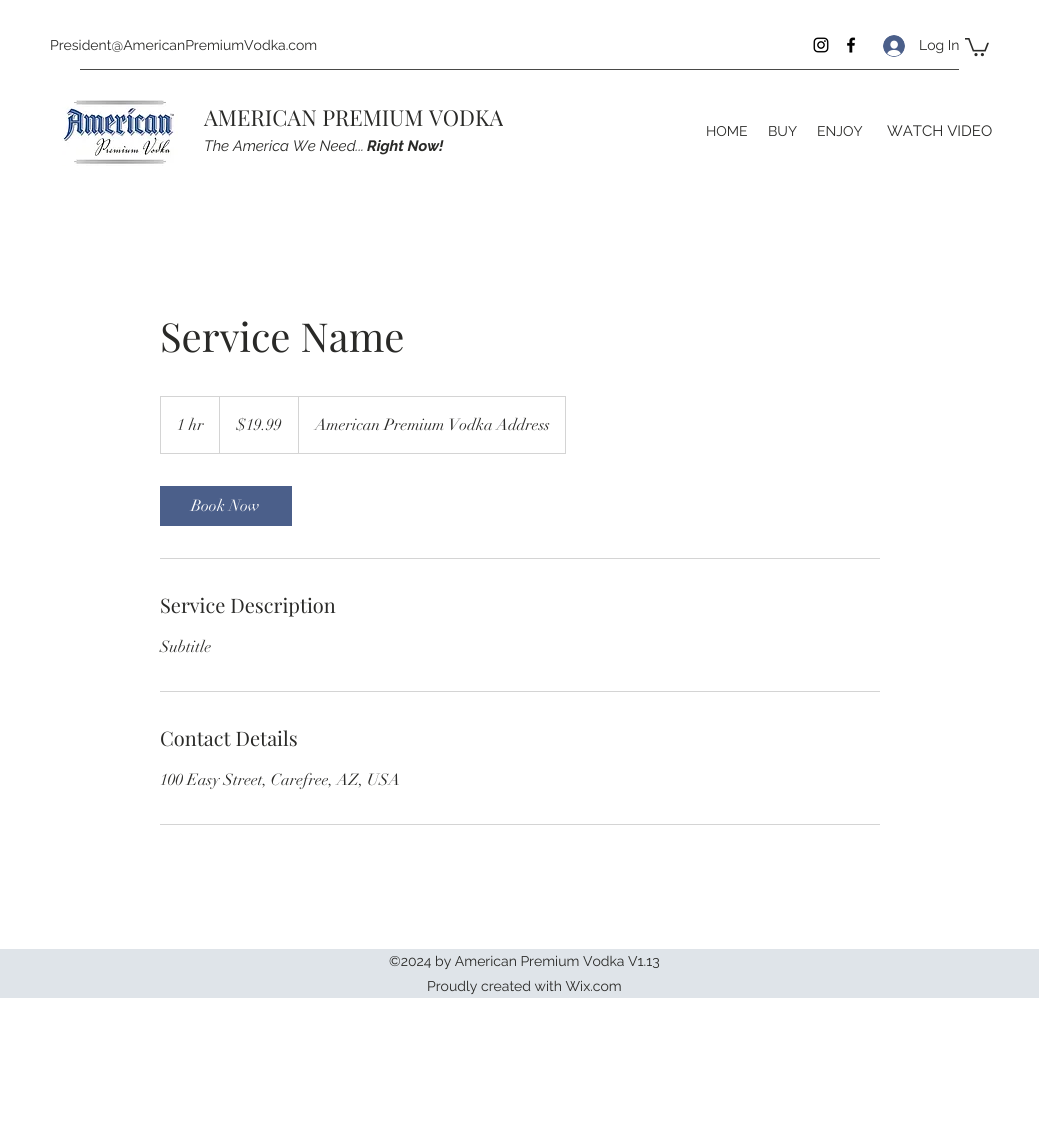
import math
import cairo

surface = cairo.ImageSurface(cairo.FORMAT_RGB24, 1039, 1134)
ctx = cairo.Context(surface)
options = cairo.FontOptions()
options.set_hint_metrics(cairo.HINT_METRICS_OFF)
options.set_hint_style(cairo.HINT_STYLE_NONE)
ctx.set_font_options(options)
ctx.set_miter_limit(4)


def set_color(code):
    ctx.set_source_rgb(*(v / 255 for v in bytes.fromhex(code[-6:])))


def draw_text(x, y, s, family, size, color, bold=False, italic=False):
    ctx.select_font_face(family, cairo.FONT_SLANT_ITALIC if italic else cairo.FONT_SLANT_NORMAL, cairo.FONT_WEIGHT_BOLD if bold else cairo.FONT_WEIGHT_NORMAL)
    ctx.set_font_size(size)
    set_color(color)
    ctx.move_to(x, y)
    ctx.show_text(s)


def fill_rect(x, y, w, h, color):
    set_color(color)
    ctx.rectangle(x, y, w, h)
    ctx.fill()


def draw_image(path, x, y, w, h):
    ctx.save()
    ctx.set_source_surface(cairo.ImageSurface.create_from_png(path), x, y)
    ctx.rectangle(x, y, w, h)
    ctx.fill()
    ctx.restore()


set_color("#ffffff")
ctx.paint()
draw_text(50, 50, "President@AmericanPremiumVodka.com", "Raleway", 14, "#292927")
draw_image("assets/img1.png", 813, 37, 16, 16)
draw_image("assets/img2.png", 847, 37, 9, 16)
draw_image("assets/img3.png", 883, 35, 22, 22)
draw_text(919, 50, "Log In", "Raleway", 14, "#292927")
draw_image("assets/img4.png", 965, 38, 24, 19)
fill_rect(80, 69, 879, 1, "#494947")
draw_image("assets/img5.png", 62, 100, 116, 66)
draw_text(204, 126, "AMERICAN PREMIUM VODKA", "Playfair Display", 22, "#292927")
draw_text(204, 151, "The America We Need...", "Raleway", 15, "#292927", italic=True)
draw_text(367, 151, "Right Now!", "Raleway", 15, "#292927", bold=True, italic=True)
draw_text(706, 136, "HOME", "Raleway", 14, "#292927")
draw_text(768, 136, "BUY", "Raleway", 14, "#292927")
draw_text(817, 136, "ENJOY", "Raleway", 14, "#292927")
draw_text(887, 136, "WATCH VIDEO", "Raleway", 15, "#292927")
draw_text(160, 352, "Service Name", "Playfair Display", 40, "#292927")
ctx.rectangle(160.5, 396.5, 405, 57)
set_color("#d4d4d4")
ctx.set_line_width(1)
ctx.stroke()
draw_text(177, 430, "1 hr", "didot", 16, "#292927")
set_color("#d4d4d4")
ctx.new_path()
ctx.move_to(219, 453)
ctx.line_to(219, 396)
ctx.line_to(220, 397)
ctx.line_to(220, 453)
ctx.close_path()
ctx.fill()
draw_text(236, 430, "$19.99", "didot", 16, "#292927")
set_color("#d4d4d4")
ctx.new_path()
ctx.move_to(298, 453)
ctx.line_to(298, 396)
ctx.line_to(299, 397)
ctx.line_to(299, 453)
ctx.close_path()
ctx.fill()
draw_text(315, 430, "American Premium Vodka Address", "didot", 16, "#292927")
fill_rect(160, 486, 132, 40, "#4b5f8a")
draw_text(191, 511, "Book Now", "didot", 16, "#ffffff")
fill_rect(160, 558, 720, 1, "#d4d4d4")
draw_text(160, 613, "Service Description", "Playfair Display", 20, "#292927")
draw_text(160, 652, "Subtitle", "didot", 16, "#292927")
fill_rect(160, 691, 720, 1, "#d4d4d4")
draw_text(160, 746, "Contact Details", "Playfair Display", 20, "#292927")
draw_text(160, 785, "100 Easy Street, Carefree, AZ, USA", "didot", 16, "#292927")
fill_rect(160, 824, 720, 1, "#d4d4d4")
fill_rect(0, 949, 1039, 49, "#dfe4e9")
draw_text(389, 966, "©2024 by American Premium Vodka V1.13", "Raleway", 14, "#292927")
draw_text(427, 991, "Proudly created with Wix.com", "Raleway", 14, "#292927")
surface.write_to_png("output.png")
